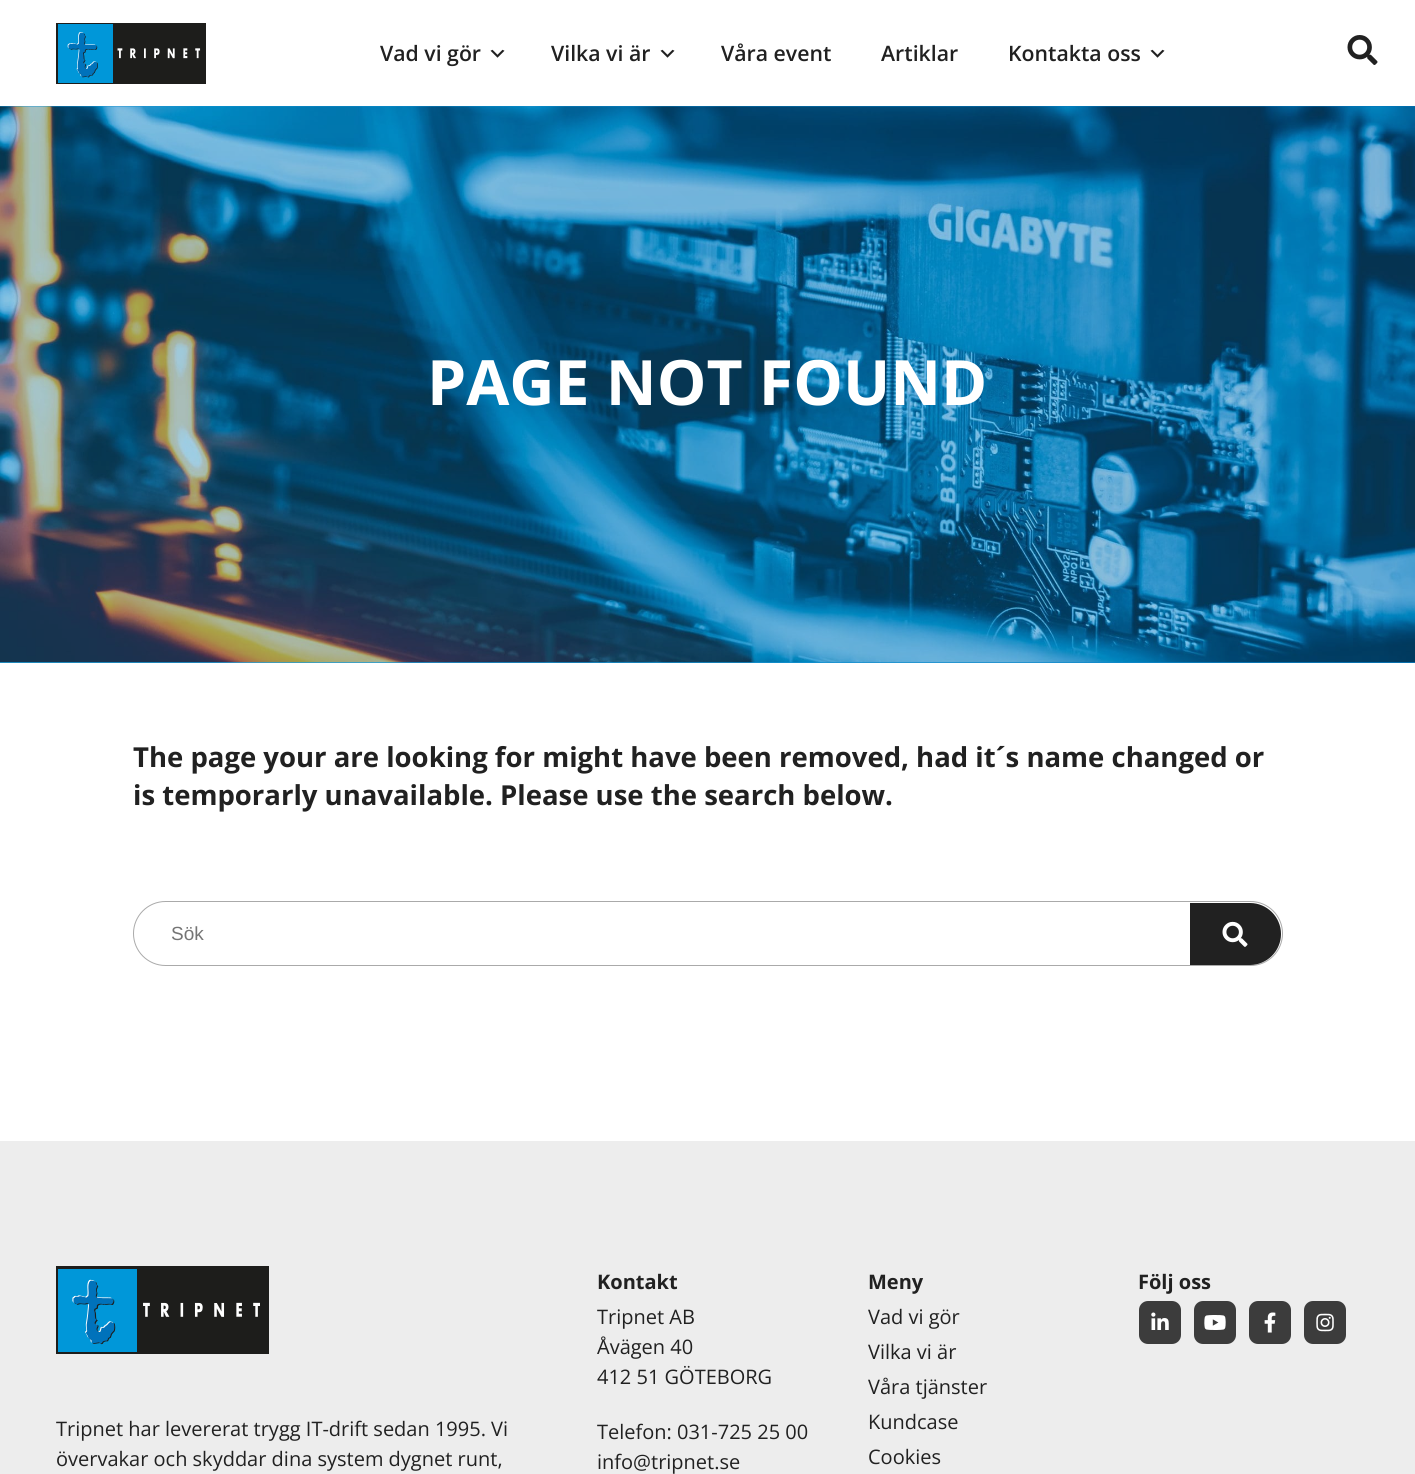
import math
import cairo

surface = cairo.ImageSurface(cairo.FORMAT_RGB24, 1415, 1474)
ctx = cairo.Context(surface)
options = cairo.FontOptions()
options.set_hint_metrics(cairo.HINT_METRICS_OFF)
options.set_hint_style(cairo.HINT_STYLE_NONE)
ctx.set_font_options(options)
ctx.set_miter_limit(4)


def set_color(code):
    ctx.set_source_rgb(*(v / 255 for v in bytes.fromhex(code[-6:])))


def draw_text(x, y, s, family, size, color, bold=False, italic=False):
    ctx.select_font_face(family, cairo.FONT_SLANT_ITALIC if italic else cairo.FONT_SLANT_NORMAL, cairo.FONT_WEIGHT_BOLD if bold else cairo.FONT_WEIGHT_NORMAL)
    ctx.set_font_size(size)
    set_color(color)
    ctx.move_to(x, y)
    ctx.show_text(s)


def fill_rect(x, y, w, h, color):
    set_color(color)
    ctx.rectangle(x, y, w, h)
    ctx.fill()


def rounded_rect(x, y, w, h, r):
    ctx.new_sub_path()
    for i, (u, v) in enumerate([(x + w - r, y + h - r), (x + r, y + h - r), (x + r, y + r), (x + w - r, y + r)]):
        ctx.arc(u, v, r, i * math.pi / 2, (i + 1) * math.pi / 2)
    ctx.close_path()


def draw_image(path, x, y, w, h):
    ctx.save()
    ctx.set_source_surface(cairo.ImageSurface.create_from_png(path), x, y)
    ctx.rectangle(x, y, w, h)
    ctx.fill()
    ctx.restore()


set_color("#ffffff")
ctx.paint()
draw_image("assets/img1.png", 56, 23, 150, 61)
draw_text(380, 61, "Vad vi gör", "Open Sans SemiBold", 21.25, "#212121")
draw_image("assets/img2.png", 490, 49, 15, 9)
draw_text(551, 61, "Vilka vi är", "Open Sans SemiBold", 21.25, "#212121")
draw_image("assets/img2.png", 660, 49, 15, 9)
draw_text(721, 61, "Våra event", "Open Sans SemiBold", 21.25, "#212121")
draw_text(881, 61, "Artiklar", "Open Sans SemiBold", 21.25, "#212121")
draw_text(1008, 61, "Kontakta oss", "Open Sans SemiBold", 21.25, "#212121")
draw_image("assets/img2.png", 1150, 49, 15, 9)
draw_image("assets/img3.png", 1347, 35, 31, 30)
gradient = cairo.LinearGradient(215, 877, 1200, -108)
gradient.add_color_stop_rgba(0, 0.2, 0.675, 0.882, 1)
gradient.add_color_stop_rgba(1, 0, 0.447, 0.733, 1)
ctx.set_source(gradient)
ctx.rectangle(0, 106, 1415, 557)
ctx.fill()
draw_image("assets/img4.png", 0, 106, 1415, 557)
gradient = cairo.LinearGradient(215, 877, 1200, -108)
gradient.add_color_stop_rgba(0, 0, 0.592, 0.851, 0.32)
gradient.add_color_stop_rgba(1, 0, 0.447, 0.733, 0.4)
ctx.set_source(gradient)
ctx.rectangle(0, 106, 1415, 557)
ctx.fill()
draw_text(427, 405, "PAGE NOT FOUND", "Open Sans", 62.5, "#ffffff", bold=True)
draw_text(133, 767, "The page your are looking for might have been removed, had it´s name changed or", "Open Sans", 27.5, "#212121", bold=True)
draw_text(133, 805, "is temporarly unavailable. Please use the search below.", "Open Sans", 27.5, "#212121", bold=True)
rounded_rect(133.5, 901.5, 1149, 64, 32)
set_color("#aaaaaa")
ctx.set_line_width(1)
ctx.stroke()
draw_text(171, 940, "Sök", "Liberation Sans", 19, "#757575")
set_color("#212121")
ctx.new_path()
ctx.move_to(1190, 903)
ctx.line_to(1250, 903)
ctx.curve_to(1267, 903, 1281, 917, 1281, 934)
ctx.curve_to(1281, 951, 1267, 965, 1250, 965)
ctx.line_to(1190, 965)
ctx.close_path()
ctx.fill()
draw_image("assets/img5.png", 1222, 921, 26, 26)
fill_rect(0, 1141, 1415, 333, "#ededed")
draw_image("assets/img6.png", 56, 1266, 213, 88)
draw_text(56, 1436, "Tripnet har levererat trygg IT-drift sedan 1995. Vi", "Open Sans", 20, "#212121")
draw_text(56, 1466, "övervakar och skyddar dina system dygnet runt,", "Open Sans", 20, "#212121")
draw_text(597, 1289, "Kontakt", "Open Sans", 20, "#212121", bold=True)
draw_text(597, 1324, "Tripnet AB", "Open Sans", 20, "#212121")
draw_text(597, 1354, "Åvägen 40", "Open Sans", 20, "#212121")
draw_text(597, 1384, "412 51 GÖTEBORG", "Open Sans", 20, "#212121")
draw_text(597, 1439, "Telefon: 031-725 25 00", "Open Sans", 20, "#212121")
draw_text(597, 1469, "info@tripnet.se", "Open Sans", 20, "#212121")
draw_text(868, 1289, "Meny", "Open Sans", 20, "#212121", bold=True)
draw_text(868, 1324, "Vad vi gör", "Open Sans", 20, "#212121")
draw_text(868, 1359, "Vilka vi är", "Open Sans", 20, "#212121")
draw_text(868, 1394, "Våra tjänster", "Open Sans", 20, "#212121")
draw_text(868, 1429, "Kundcase", "Open Sans", 20, "#212121")
draw_text(868, 1464, "Cookies", "Open Sans", 20, "#212121")
draw_text(1138, 1289, "Följ oss", "Open Sans", 20, "#212121", bold=True)
set_color("#3c3c3c")
rounded_rect(1139, 1301, 42, 43, 9)
ctx.fill()
draw_image("assets/img7.png", 1151, 1312, 18, 18)
rounded_rect(1194, 1301, 42, 43, 9)
ctx.fill()
draw_image("assets/img8.png", 1204, 1315, 22, 15)
rounded_rect(1249, 1301, 42, 43, 9)
ctx.fill()
draw_image("assets/img9.png", 1264, 1312, 12, 21)
rounded_rect(1304, 1301, 42, 43, 9)
ctx.fill()
draw_image("assets/img10.png", 1316, 1313, 18, 19)
surface.write_to_png("output.png")
